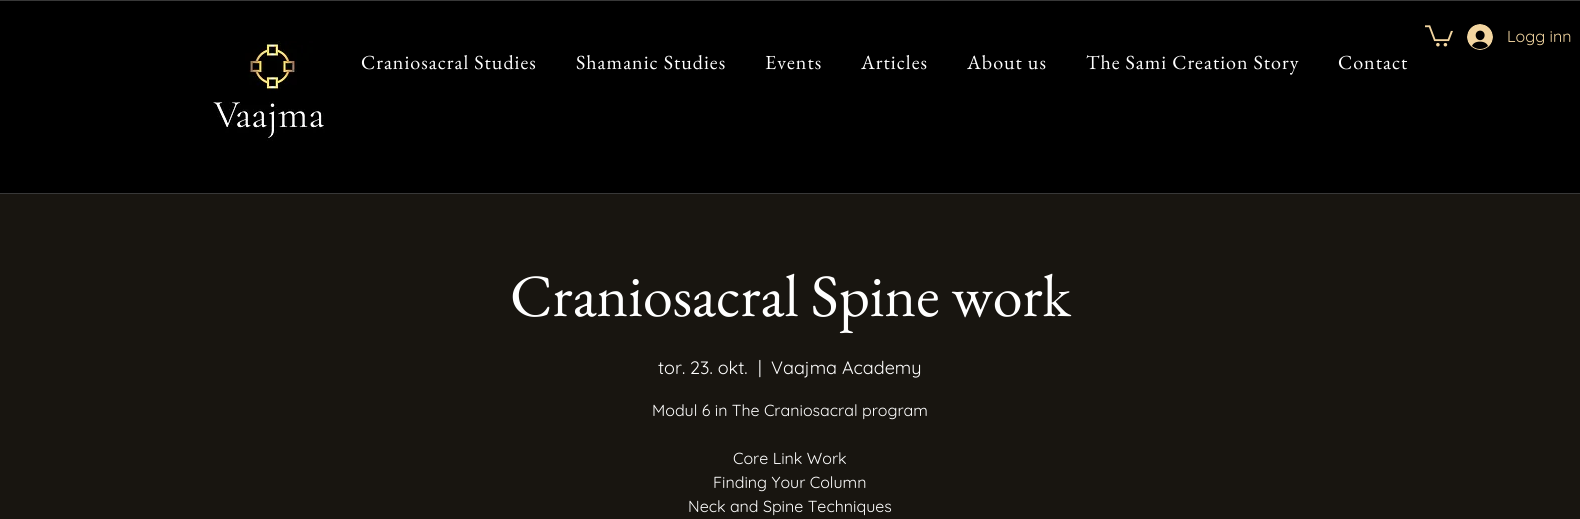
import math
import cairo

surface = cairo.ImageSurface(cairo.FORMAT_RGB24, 1580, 519)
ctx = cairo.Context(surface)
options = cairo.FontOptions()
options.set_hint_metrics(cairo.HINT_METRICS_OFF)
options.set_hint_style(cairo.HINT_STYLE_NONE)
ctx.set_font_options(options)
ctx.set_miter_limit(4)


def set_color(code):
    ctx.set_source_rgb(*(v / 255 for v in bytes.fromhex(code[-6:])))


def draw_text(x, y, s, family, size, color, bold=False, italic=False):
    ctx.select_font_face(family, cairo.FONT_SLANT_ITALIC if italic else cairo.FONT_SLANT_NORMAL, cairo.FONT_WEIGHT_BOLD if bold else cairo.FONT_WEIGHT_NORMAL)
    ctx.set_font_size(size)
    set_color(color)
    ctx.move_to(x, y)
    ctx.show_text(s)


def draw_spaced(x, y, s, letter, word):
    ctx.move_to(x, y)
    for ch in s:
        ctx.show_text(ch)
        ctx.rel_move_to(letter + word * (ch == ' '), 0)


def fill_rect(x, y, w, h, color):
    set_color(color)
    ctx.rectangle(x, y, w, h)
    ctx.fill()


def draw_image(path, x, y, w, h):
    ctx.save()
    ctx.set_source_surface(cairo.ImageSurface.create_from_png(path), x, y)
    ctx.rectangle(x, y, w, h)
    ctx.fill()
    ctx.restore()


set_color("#383838")
ctx.paint()
fill_rect(0, 1, 1580, 192, "#000000")
draw_image("assets/img1.png", 1425, 25, 28, 22)
draw_image("assets/img2.png", 1467, 24, 26, 26)
draw_text(1507, 42, "Logg inn", "Quicksand", 16, "#f2d5a0")
draw_image("assets/img3.png", 213, 41, 112, 100)
ctx.select_font_face("EB Garamond")
ctx.set_font_size(20)
set_color("#ffffff")
draw_spaced(361, 69, "Craniosacral Studies", 1, 0)
draw_spaced(576, 69, "Shamanic Studies", 1, 0)
draw_spaced(765, 69, "Events", 1, 0)
draw_spaced(861, 69, "Articles", 1, 0)
draw_spaced(967, 69, "About us", 1, 0)
draw_spaced(1086, 69, "The Sami Creation Story", 1, 0)
draw_spaced(1338, 69, "Contact", 1, 0)
fill_rect(0, 194, 1580, 325, "#181510")
draw_text(510, 316, "Craniosacral Spine work", "EB Garamond", 60, "#ffffff")
draw_text(658, 374, "tor. 23. okt.", "Quicksand", 18, "#ffffff")
draw_text(758, 374, "|", "Quicksand", 18, "#ffffff")
draw_text(771, 374, "Vaajma Academy", "Quicksand", 18, "#ffffff")
draw_text(652, 416, "Modul 6 in The Craniosacral program", "Quicksand", 16, "#ffffff")
draw_text(733, 464, "Core Link Work", "Quicksand", 16, "#ffffff")
draw_text(713, 488, "Finding Your Column", "Quicksand", 16, "#ffffff")
draw_text(688, 512, "Neck and Spine Techniques", "Quicksand", 16, "#ffffff")
surface.write_to_png("output.png")
